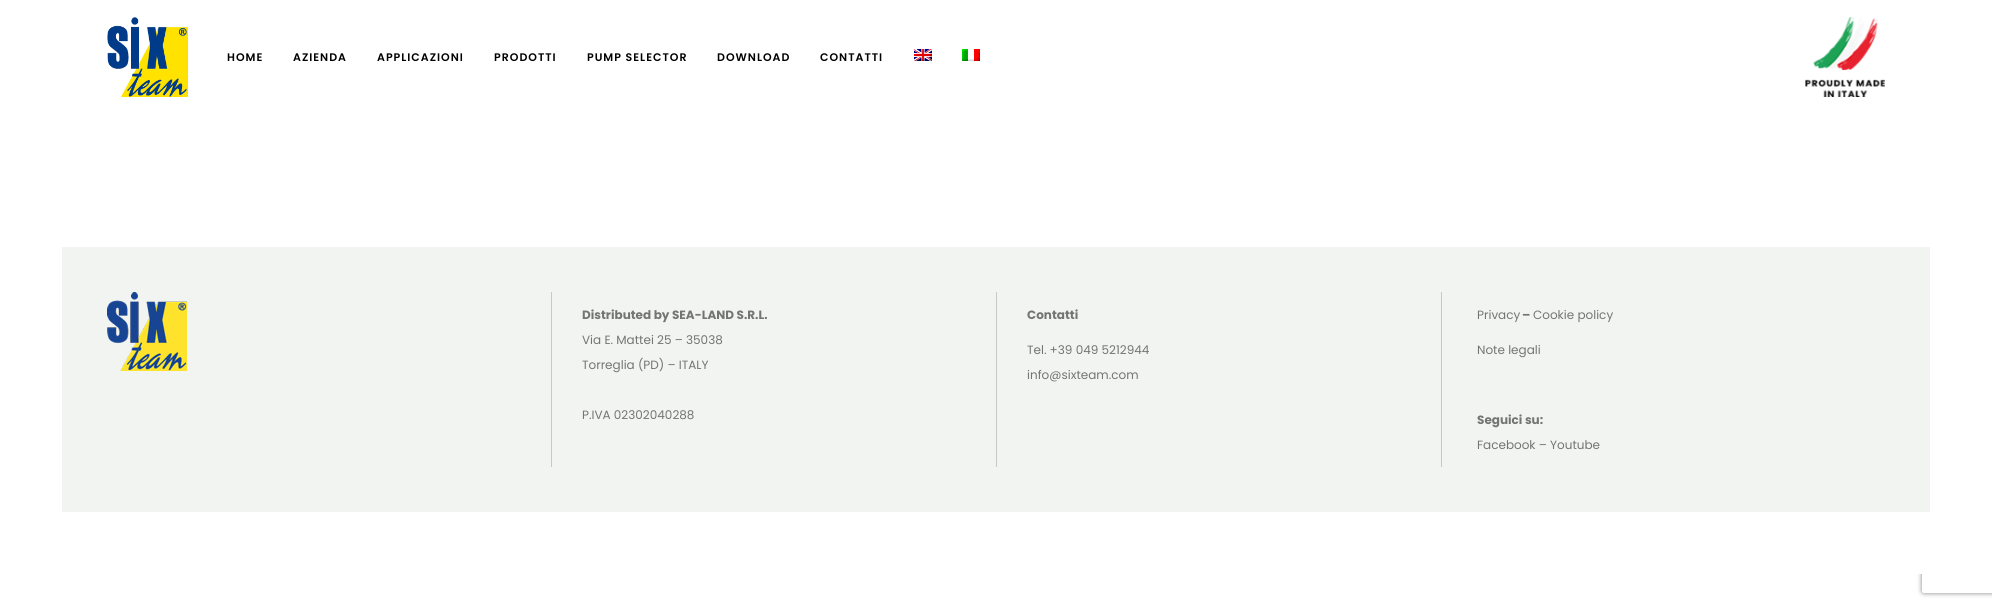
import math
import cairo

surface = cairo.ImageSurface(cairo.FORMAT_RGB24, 1992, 607)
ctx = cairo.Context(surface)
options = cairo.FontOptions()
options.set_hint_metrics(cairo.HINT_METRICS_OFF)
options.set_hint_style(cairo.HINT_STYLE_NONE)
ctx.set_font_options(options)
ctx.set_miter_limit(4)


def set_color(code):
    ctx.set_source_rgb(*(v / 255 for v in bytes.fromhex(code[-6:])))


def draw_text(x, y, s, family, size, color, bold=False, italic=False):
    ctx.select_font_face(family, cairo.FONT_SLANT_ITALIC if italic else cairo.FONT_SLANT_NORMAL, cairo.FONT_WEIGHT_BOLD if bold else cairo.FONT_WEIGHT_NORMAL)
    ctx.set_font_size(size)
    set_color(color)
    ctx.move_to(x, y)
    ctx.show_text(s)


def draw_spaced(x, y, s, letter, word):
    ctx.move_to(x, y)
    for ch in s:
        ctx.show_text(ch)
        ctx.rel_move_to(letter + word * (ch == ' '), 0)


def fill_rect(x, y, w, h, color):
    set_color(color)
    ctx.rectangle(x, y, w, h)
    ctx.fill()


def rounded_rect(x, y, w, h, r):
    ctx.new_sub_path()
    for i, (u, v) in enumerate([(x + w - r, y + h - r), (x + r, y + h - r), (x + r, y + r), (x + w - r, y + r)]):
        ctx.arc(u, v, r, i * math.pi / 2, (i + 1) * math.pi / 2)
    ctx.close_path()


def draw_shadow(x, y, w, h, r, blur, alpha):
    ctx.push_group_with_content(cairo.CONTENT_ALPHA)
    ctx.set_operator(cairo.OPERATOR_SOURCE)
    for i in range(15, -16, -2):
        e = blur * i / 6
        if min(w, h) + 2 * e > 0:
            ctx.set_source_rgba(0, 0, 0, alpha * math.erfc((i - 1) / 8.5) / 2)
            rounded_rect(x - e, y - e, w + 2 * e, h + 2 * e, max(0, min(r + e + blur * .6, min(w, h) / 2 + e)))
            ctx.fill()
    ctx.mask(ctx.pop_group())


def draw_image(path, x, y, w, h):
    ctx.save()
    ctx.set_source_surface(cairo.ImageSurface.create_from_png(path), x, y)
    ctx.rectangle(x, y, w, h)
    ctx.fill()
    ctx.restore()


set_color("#ffffff")
ctx.paint()
ctx.save()
ctx.set_fill_rule(cairo.FILL_RULE_EVEN_ODD)
ctx.new_path()
ctx.move_to(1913, 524)
ctx.line_to(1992, 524)
ctx.line_to(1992, 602)
ctx.line_to(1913, 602)
ctx.close_path()
ctx.move_to(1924, 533)
ctx.line_to(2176, 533)
ctx.curve_to(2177, 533, 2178, 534, 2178, 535)
ctx.line_to(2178, 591)
ctx.curve_to(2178, 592, 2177, 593, 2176, 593)
ctx.line_to(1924, 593)
ctx.curve_to(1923, 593, 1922, 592, 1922, 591)
ctx.line_to(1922, 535)
ctx.curve_to(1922, 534, 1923, 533, 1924, 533)
ctx.close_path()
ctx.clip()
set_color("#808080")
draw_shadow(1922, 533, 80, 60, 2, 2.5, 1)
ctx.restore()
fill_rect(1917, 528, 75, 46, "#ffffff")
draw_image("assets/img1.png", 107, 17, 81, 80)
ctx.select_font_face("Poppins SemiBold")
ctx.set_font_size(11)
set_color("#000000")
draw_spaced(227, 61, "HOME", 1, 0)
draw_spaced(293, 61, "AZIENDA", 1, 0)
draw_spaced(377, 61, "APPLICAZIONI", 1, 0)
draw_spaced(494, 61, "PRODOTTI", 1, 0)
draw_spaced(587, 61, "PUMP SELECTOR", 1, 0)
draw_spaced(717, 61, "DOWNLOAD", 1, 0)
draw_spaced(820, 61, "CONTATTI", 1, 0)
draw_image("assets/img2.png", 914, 49, 18, 12)
draw_image("assets/img3.png", 962, 49, 18, 12)
draw_image("assets/img4.png", 1805, 17, 80, 80)
fill_rect(62, 247, 1868, 265, "#f1f4f1")
draw_image("assets/img5.png", 107, 292, 80, 79)
fill_rect(551, 292, 1, 175, "#c5cbc3")
draw_text(582, 319, "Distributed by SEA-LAND S.R.L.", "Poppins", 12, "#747474", bold=True)
draw_text(582, 344, "Via E. Mattei 25 – 35038", "Poppins", 12, "#747474")
draw_text(582, 369, "Torreglia (PD) – ITALY", "Poppins", 12, "#747474")
draw_text(582, 419, "P.IVA 02302040288", "Poppins", 12, "#747474")
fill_rect(996, 292, 1, 175, "#c5cbc3")
draw_text(1027, 319, "Contatti", "Poppins", 12, "#747474", bold=True)
draw_text(1027, 354, "Tel. +39 049 5212944", "Poppins", 12, "#747474")
draw_text(1027, 379, "info@sixteam.com", "Poppins", 12, "#747474")
fill_rect(1441, 292, 1, 175, "#c5cbc3")
draw_text(1477, 319, "Privacy", "Poppins", 12, "#747474")
draw_text(1522, 319, "–", "Poppins", 12, "#747474", bold=True)
draw_text(1533, 319, "Cookie policy", "Poppins", 12, "#747474")
draw_text(1477, 354, "Note legali", "Poppins", 12, "#747474")
draw_text(1477, 424, "Seguici su:", "Poppins", 12, "#747474", bold=True)
draw_text(1477, 449, "Facebook – Youtube", "Poppins", 12, "#747474")
surface.write_to_png("output.png")
